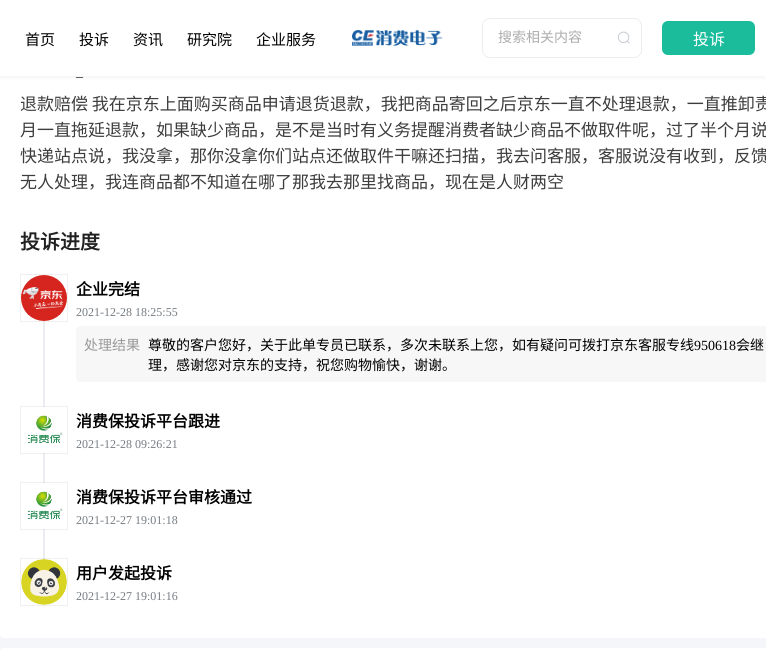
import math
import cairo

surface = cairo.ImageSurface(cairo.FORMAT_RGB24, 766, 658)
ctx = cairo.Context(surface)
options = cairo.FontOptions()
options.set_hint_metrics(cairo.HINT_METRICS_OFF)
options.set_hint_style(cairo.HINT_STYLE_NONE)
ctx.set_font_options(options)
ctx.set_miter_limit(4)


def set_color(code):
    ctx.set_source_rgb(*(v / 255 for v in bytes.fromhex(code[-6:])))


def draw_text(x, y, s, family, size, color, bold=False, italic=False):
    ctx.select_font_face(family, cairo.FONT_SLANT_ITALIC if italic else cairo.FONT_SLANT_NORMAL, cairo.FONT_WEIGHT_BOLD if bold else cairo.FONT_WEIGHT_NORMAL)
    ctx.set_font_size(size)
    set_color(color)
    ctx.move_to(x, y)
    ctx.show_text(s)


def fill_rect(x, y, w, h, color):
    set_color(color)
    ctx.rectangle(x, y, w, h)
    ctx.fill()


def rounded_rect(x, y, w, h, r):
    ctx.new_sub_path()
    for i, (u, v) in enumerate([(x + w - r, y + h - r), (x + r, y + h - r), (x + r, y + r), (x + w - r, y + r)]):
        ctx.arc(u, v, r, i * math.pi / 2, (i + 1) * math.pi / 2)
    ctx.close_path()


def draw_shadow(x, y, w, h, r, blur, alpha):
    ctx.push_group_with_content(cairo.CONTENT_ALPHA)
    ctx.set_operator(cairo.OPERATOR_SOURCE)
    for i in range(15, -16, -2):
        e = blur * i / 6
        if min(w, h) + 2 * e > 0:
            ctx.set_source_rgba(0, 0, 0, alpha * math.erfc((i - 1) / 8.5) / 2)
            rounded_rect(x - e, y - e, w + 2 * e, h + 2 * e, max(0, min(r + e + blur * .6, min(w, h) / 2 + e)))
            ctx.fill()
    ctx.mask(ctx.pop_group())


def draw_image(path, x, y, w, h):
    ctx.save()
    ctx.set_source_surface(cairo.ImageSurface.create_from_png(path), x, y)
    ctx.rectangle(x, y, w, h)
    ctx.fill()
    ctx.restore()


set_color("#f5f6fa")
ctx.paint()
set_color("#ffffff")
rounded_rect(0, 1, 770, 637, 4)
ctx.fill()
set_color("#000000")
draw_shadow(0, 2, 766, 76, 0, 2, 0.04)
fill_rect(0, 0, 766, 76, "#ffffff")
draw_text(25, 45, "首页", "Noto Sans CJK SC", 15, "#000000")
draw_text(79, 45, "投诉", "Noto Sans CJK SC", 15, "#000000")
draw_text(133, 45, "资讯", "Noto Sans CJK SC", 15, "#000000")
draw_text(187, 45, "研究院", "Noto Sans CJK SC", 15, "#000000")
draw_text(256, 45, "企业服务", "Noto Sans CJK SC", 15, "#000000")
draw_image("assets/img1.png", 352, 30, 91, 16)
rounded_rect(482.5, 18.5, 159, 39, 7.5)
set_color("#ebedf0")
ctx.set_line_width(1)
ctx.stroke()
draw_text(498, 42, "搜索相关内容", "Noto Sans CJK SC", 14, "#adadad")
draw_image("assets/img2.png", 617, 31, 13, 13)
set_color("#1abc9c")
rounded_rect(662, 21, 93, 34, 6)
ctx.fill()
draw_text(693, 45, "投诉", "Noto Sans CJK SC", 16, "#ffffff")
draw_text(76, 76, "_", "Liberation Serif", 14, "#212121")
draw_text(20, 110, "退款赔偿 我在京东上面购买商品申请退货退款，我把商品寄回之后京东一直不处理退款，一直推卸责", "Noto Sans CJK SC", 17, "#3d3d3d")
draw_text(20, 136, "月一直拖延退款，如果缺少商品，是不是当时有义务提醒消费者缺少商品不做取件呢，过了半个月说", "Noto Sans CJK SC", 17, "#3d3d3d")
draw_text(20, 162, "快递站点说，我没拿，那你没拿你们站点还做取件干嘛还扫描，我去问客服，客服说没有收到，反馈", "Noto Sans CJK SC", 17, "#3d3d3d")
draw_text(20, 188, "无人处理，我连商品都不知道在哪了那我去那里找商品，现在是人财两空", "Noto Sans CJK SC", 17, "#3d3d3d")
draw_text(20, 249, "投诉进度", "Noto Sans CJK SC", 20, "#212121", bold=True)
fill_rect(43, 320, 2, 96, "#ebedf0")
ctx.rectangle(20.5, 274.5, 47, 47)
ctx.set_source_rgba(0, 0, 0, 0.06)
ctx.stroke()
draw_image("assets/img3.png", 21, 275, 46, 46)
draw_text(76, 295, "企业完结", "Noto Sans CJK SC", 16, "#000000", bold=True)
draw_text(76, 316, "2021-12-28 18:25:55", "Liberation Serif", 12, "#767c82")
set_color("#f7f7f7")
rounded_rect(76, 326, 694, 56, 4)
ctx.fill()
draw_text(84, 350, "处理结果", "Noto Sans CJK SC", 14, "#999999")
draw_text(148, 350, "尊敬的客户您好，关于此单专员已联系，多次未联系上您，如有疑问可拨打京东客服专线", "Noto Sans CJK SC", 14, "#000000")
draw_text(694, 350, "950618", "Liberation Serif", 14, "#000000")
draw_text(736, 350, "会继", "Noto Sans CJK SC", 14, "#000000")
draw_text(148, 370, "理，感谢您对京东的支持，祝您购物愉快，谢谢。", "Noto Sans CJK SC", 14, "#000000")
fill_rect(43, 452, 2, 40, "#ebedf0")
ctx.rectangle(20.5, 406.5, 47, 47)
ctx.set_source_rgba(0, 0, 0, 0.06)
ctx.stroke()
draw_image("assets/img4.png", 27, 407, 36, 46)
draw_text(76, 427, "消费保投诉平台跟进", "Noto Sans CJK SC", 16, "#000000", bold=True)
draw_text(76, 448, "2021-12-28 09:26:21", "Liberation Serif", 12, "#767c82")
fill_rect(43, 528, 2, 40, "#ebedf0")
ctx.rectangle(20.5, 482.5, 47, 47)
ctx.set_source_rgba(0, 0, 0, 0.06)
ctx.stroke()
draw_image("assets/img5.png", 27, 483, 36, 46)
draw_text(76, 503, "消费保投诉平台审核通过", "Noto Sans CJK SC", 16, "#000000", bold=True)
draw_text(76, 524, "2021-12-27 19:01:18", "Liberation Serif", 12, "#767c82")
ctx.rectangle(20.5, 558.5, 47, 47)
ctx.set_source_rgba(0, 0, 0, 0.06)
ctx.stroke()
draw_image("assets/img6.png", 21, 559, 46, 46)
draw_text(76, 579, "用户发起投诉", "Noto Sans CJK SC", 16, "#000000", bold=True)
draw_text(76, 600, "2021-12-27 19:01:16", "Liberation Serif", 12, "#767c82")
set_color("#ffffff")
rounded_rect(0, 648, 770, 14, 4)
ctx.fill()
surface.write_to_png("output.png")
